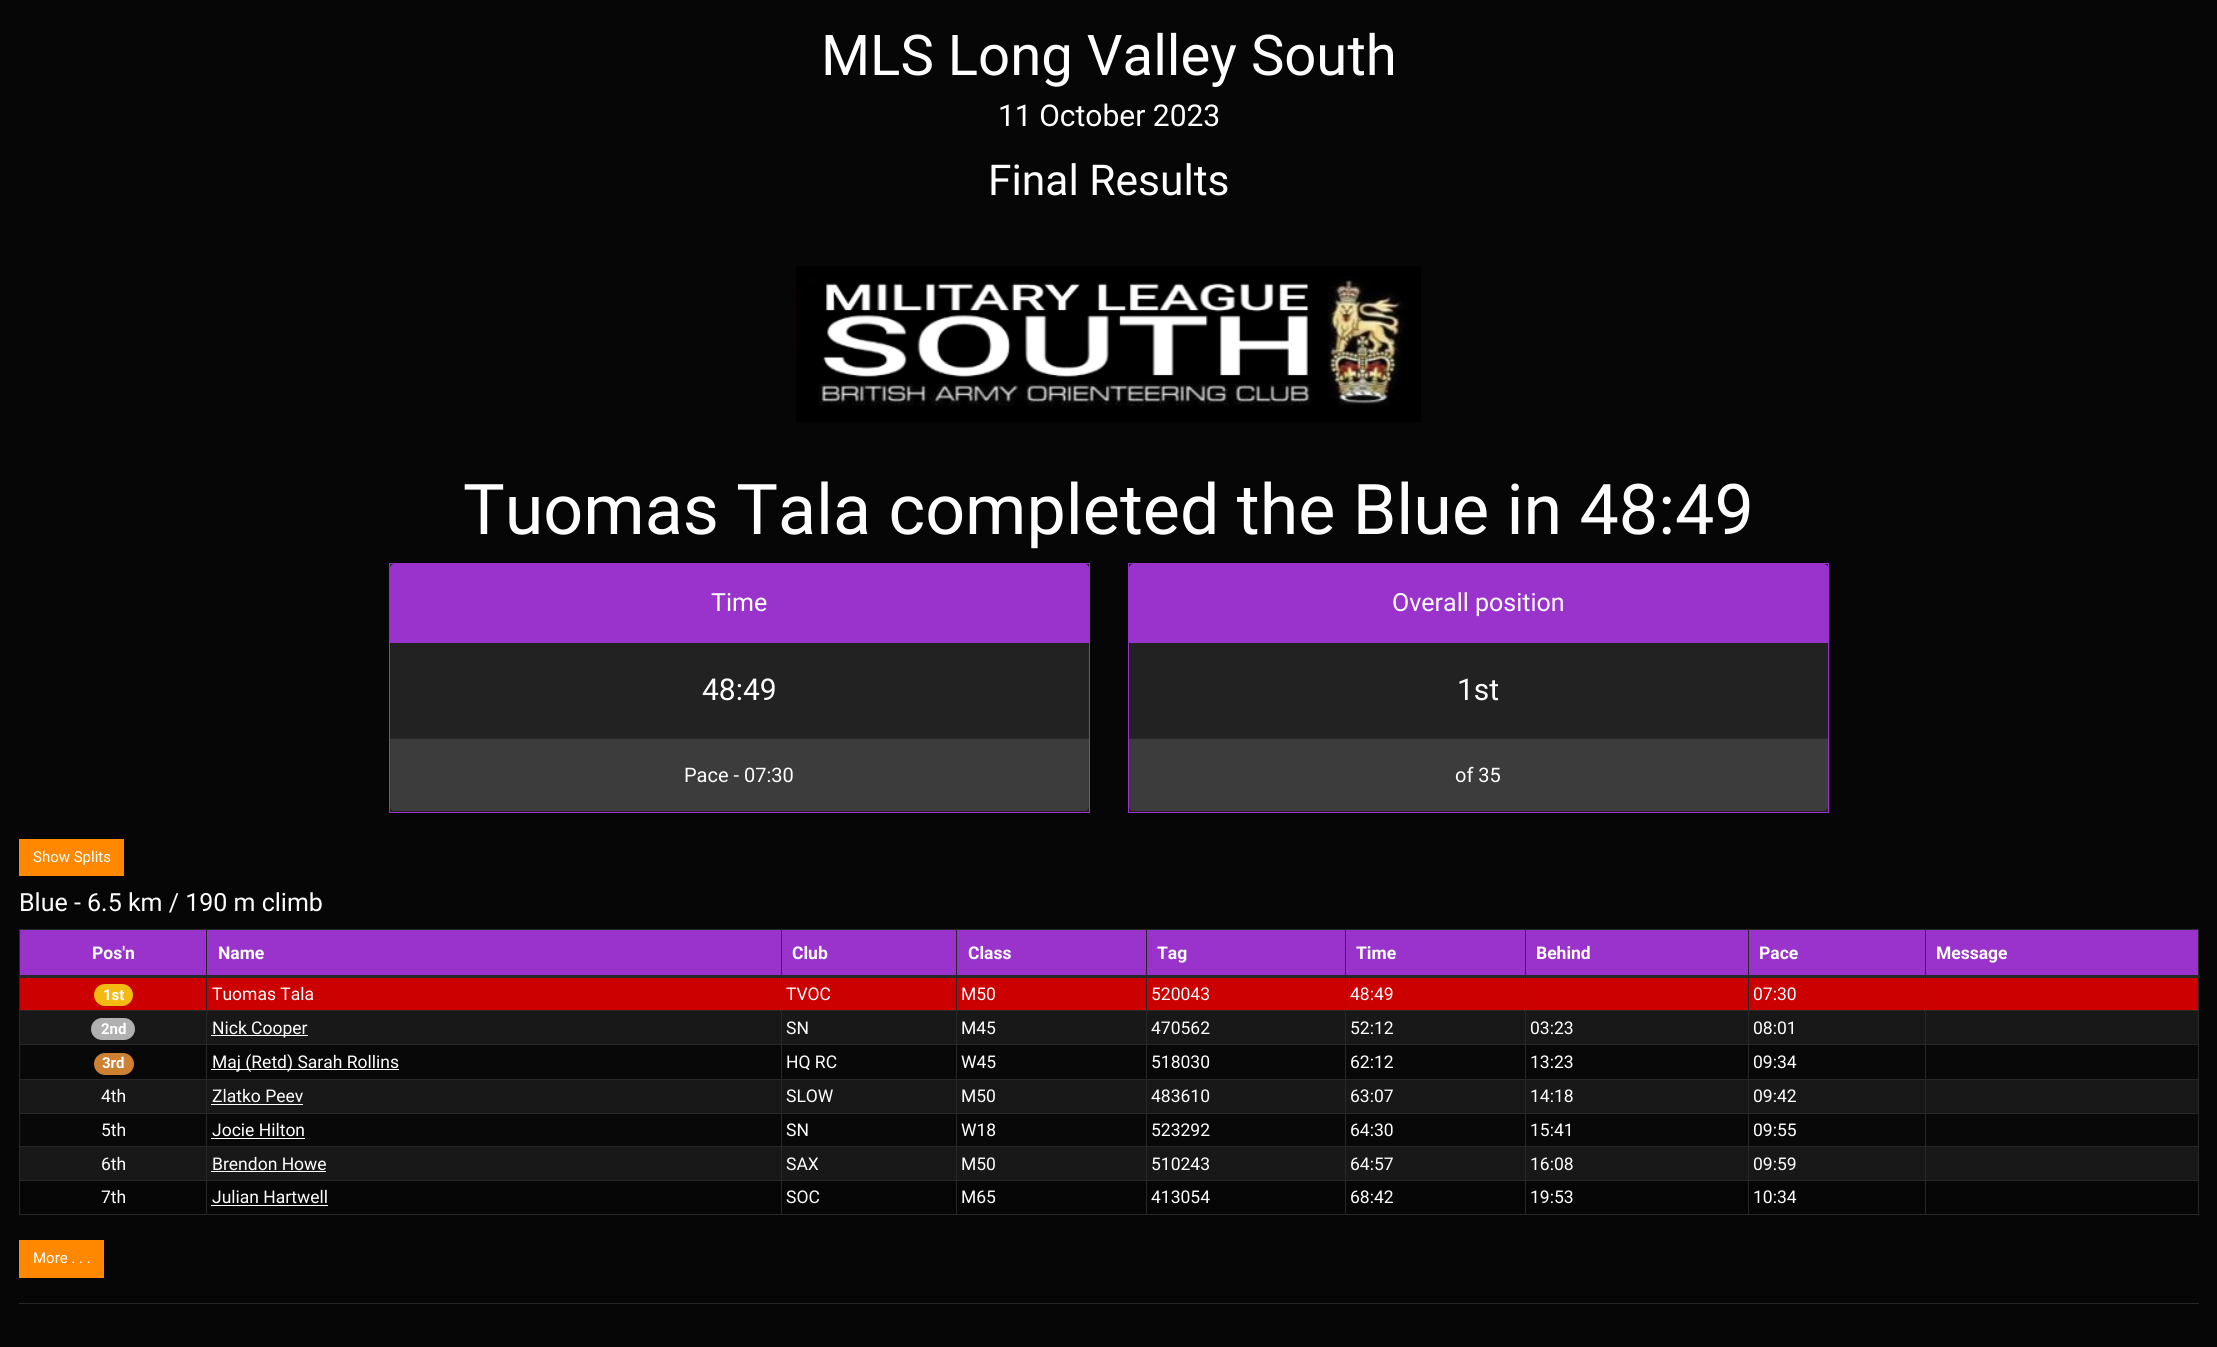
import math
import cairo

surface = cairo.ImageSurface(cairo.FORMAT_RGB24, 2217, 1347)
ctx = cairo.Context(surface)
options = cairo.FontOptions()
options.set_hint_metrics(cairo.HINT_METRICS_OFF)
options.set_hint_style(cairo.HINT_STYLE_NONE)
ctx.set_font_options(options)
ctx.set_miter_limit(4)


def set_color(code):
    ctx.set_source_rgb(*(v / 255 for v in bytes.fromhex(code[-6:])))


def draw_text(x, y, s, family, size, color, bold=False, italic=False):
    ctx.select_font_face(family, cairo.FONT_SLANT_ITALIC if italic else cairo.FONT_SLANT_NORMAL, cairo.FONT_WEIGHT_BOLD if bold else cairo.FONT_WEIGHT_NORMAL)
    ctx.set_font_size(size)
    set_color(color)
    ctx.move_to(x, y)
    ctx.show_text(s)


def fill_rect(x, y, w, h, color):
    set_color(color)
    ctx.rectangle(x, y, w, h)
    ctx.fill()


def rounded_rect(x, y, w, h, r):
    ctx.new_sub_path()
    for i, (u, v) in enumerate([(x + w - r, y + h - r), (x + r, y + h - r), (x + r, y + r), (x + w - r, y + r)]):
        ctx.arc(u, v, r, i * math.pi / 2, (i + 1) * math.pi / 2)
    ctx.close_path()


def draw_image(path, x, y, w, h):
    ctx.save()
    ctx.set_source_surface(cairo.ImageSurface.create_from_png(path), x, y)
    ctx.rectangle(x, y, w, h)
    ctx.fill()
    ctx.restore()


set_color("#060606")
ctx.paint()
draw_text(821, 75, "MLS Long Valley South", "Roboto", 56.25, "#ffffff")
draw_text(998, 126, "11 October 2023", "Roboto", 30, "#ffffff")
draw_text(988, 195, "Final Results", "Roboto", 42.5, "#ffffff")
draw_image("assets/img1.png", 796, 266, 625, 156)
draw_text(463, 534, "Tuomas Tala completed the Blue in 48:49", "Roboto", 70, "#ffffff")
set_color("#222222")
ctx.rectangle(389.5, 563.5, 700, 249)
ctx.fill_preserve()
set_color("#9933cc")
ctx.set_line_width(1)
ctx.stroke()
ctx.new_path()
ctx.move_to(394, 564)
ctx.line_to(1085, 564)
ctx.curve_to(1087, 564, 1089, 566, 1089, 568)
ctx.line_to(1089, 643)
ctx.line_to(390, 643)
ctx.line_to(390, 568)
ctx.curve_to(390, 566, 392, 564, 394, 564)
ctx.close_path()
ctx.fill()
draw_text(711, 611, "Time", "Roboto", 25, "#ffffff")
draw_text(702, 700, "48:49", "Roboto", 30, "#ffffff")
set_color("#3c3c3c")
ctx.new_path()
ctx.move_to(390, 738)
ctx.line_to(1089, 738)
ctx.line_to(1089, 807)
ctx.curve_to(1089, 809, 1087, 811, 1085, 811)
ctx.line_to(394, 811)
ctx.curve_to(392, 811, 390, 809, 390, 807)
ctx.close_path()
ctx.fill()
fill_rect(390, 738, 699, 1, "#282828")
draw_text(684, 782, "Pace - 07:30", "Roboto", 20, "#ffffff")
set_color("#222222")
ctx.rectangle(1128.5, 563.5, 700, 249)
ctx.fill_preserve()
set_color("#9933cc")
ctx.stroke()
ctx.new_path()
ctx.move_to(1133, 564)
ctx.line_to(1824, 564)
ctx.curve_to(1826, 564, 1828, 566, 1828, 568)
ctx.line_to(1828, 643)
ctx.line_to(1129, 643)
ctx.line_to(1129, 568)
ctx.curve_to(1129, 566, 1131, 564, 1133, 564)
ctx.close_path()
ctx.fill()
draw_text(1392, 611, "Overall position", "Roboto", 25, "#ffffff")
draw_text(1457, 700, "1st", "Roboto", 30, "#ffffff")
set_color("#3c3c3c")
ctx.new_path()
ctx.move_to(1129, 738)
ctx.line_to(1828, 738)
ctx.line_to(1828, 807)
ctx.curve_to(1828, 809, 1826, 811, 1824, 811)
ctx.line_to(1133, 811)
ctx.curve_to(1131, 811, 1129, 809, 1129, 807)
ctx.close_path()
ctx.fill()
fill_rect(1129, 738, 699, 1, "#282828")
draw_text(1455, 782, "of 35", "Roboto", 20, "#ffffff")
fill_rect(19, 839, 105, 37, "#ff8800")
draw_text(33, 862, "Show Splits", "Roboto", 15, "#ffffff")
draw_text(19, 911, "Blue - 6.5 km / 190 m climb", "Roboto", 25, "#ffffff")
fill_rect(20, 1011, 2178, 169, "#181818")
fill_rect(19, 929, 2180, 1, "#282828")
fill_rect(2198, 929, 1, 286, "#282828")
fill_rect(19, 1214, 2180, 1, "#282828")
fill_rect(19, 929, 1, 286, "#282828")
fill_rect(20, 930, 2178, 45, "#9933cc")
draw_text(92, 959, "Pos'n", "Roboto", 17.5, "#ffffff", bold=True)
draw_text(218, 959, "Name", "Roboto", 17.5, "#ffffff", bold=True)
draw_text(792, 959, "Club", "Roboto", 17.5, "#ffffff", bold=True)
draw_text(968, 959, "Class", "Roboto", 17.5, "#ffffff", bold=True)
draw_text(1157, 959, "Tag", "Roboto", 17.5, "#ffffff", bold=True)
draw_text(1356, 959, "Time", "Roboto", 17.5, "#ffffff", bold=True)
draw_text(1536, 959, "Behind", "Roboto", 17.5, "#ffffff", bold=True)
draw_text(1759, 959, "Pace", "Roboto", 17.5, "#ffffff", bold=True)
fill_rect(20, 978, 761, 32, "#cc0000")
fill_rect(1925, 1010, 274, 1, "#282828")
fill_rect(1925, 1044, 274, 1, "#282828")
fill_rect(20, 1045, 2178, 34, "#080808")
fill_rect(1925, 1079, 274, 1, "#282828")
fill_rect(1925, 1113, 274, 1, "#282828")
fill_rect(20, 1114, 2178, 32, "#080808")
fill_rect(1925, 1146, 274, 1, "#282828")
fill_rect(1925, 1180, 274, 1, "#282828")
fill_rect(1925, 1180, 1, 35, "#282828")
fill_rect(1748, 1180, 178, 1, "#282828")
fill_rect(1925, 1146, 1, 35, "#282828")
fill_rect(1748, 1146, 178, 1, "#282828")
fill_rect(1925, 1113, 1, 35, "#282828")
fill_rect(1748, 1113, 178, 1, "#282828")
fill_rect(1925, 1079, 1, 35, "#282828")
fill_rect(1748, 1079, 178, 1, "#282828")
fill_rect(1925, 1044, 1, 36, "#282828")
fill_rect(1748, 1044, 178, 1, "#282828")
fill_rect(1925, 1010, 1, 35, "#282828")
fill_rect(1748, 1010, 178, 1, "#282828")
fill_rect(1748, 1180, 1, 35, "#282828")
fill_rect(1525, 1180, 224, 1, "#282828")
fill_rect(1748, 1146, 1, 35, "#282828")
fill_rect(1525, 1146, 224, 1, "#282828")
fill_rect(1748, 1113, 1, 35, "#282828")
fill_rect(1525, 1113, 224, 1, "#282828")
fill_rect(1748, 1079, 1, 35, "#282828")
fill_rect(1525, 1079, 224, 1, "#282828")
fill_rect(1748, 1044, 1, 36, "#282828")
fill_rect(1525, 1044, 224, 1, "#282828")
fill_rect(1748, 1010, 1, 35, "#282828")
fill_rect(1525, 1010, 224, 1, "#282828")
fill_rect(1525, 1180, 1, 35, "#282828")
fill_rect(1345, 1180, 181, 1, "#282828")
fill_rect(1525, 1146, 1, 35, "#282828")
fill_rect(1345, 1146, 181, 1, "#282828")
fill_rect(1525, 1113, 1, 35, "#282828")
fill_rect(1345, 1113, 181, 1, "#282828")
fill_rect(1525, 1079, 1, 35, "#282828")
fill_rect(1345, 1079, 181, 1, "#282828")
fill_rect(1525, 1044, 1, 36, "#282828")
fill_rect(1345, 1044, 181, 1, "#282828")
fill_rect(1525, 1010, 1, 35, "#282828")
fill_rect(1345, 1010, 181, 1, "#282828")
fill_rect(1345, 1180, 1, 35, "#282828")
fill_rect(1146, 1180, 200, 1, "#282828")
fill_rect(1345, 1146, 1, 35, "#282828")
fill_rect(1146, 1146, 200, 1, "#282828")
fill_rect(1345, 1113, 1, 35, "#282828")
fill_rect(1146, 1113, 200, 1, "#282828")
fill_rect(1345, 1079, 1, 35, "#282828")
fill_rect(1146, 1079, 200, 1, "#282828")
fill_rect(1345, 1044, 1, 36, "#282828")
fill_rect(1146, 1044, 200, 1, "#282828")
fill_rect(1345, 1010, 1, 35, "#282828")
fill_rect(1146, 1010, 200, 1, "#282828")
fill_rect(1146, 1180, 1, 35, "#282828")
fill_rect(956, 1180, 192, 1, "#282828")
fill_rect(1146, 1146, 1, 35, "#282828")
fill_rect(956, 1146, 192, 1, "#282828")
fill_rect(1146, 1113, 1, 35, "#282828")
fill_rect(956, 1113, 192, 1, "#282828")
fill_rect(1146, 1079, 1, 35, "#282828")
fill_rect(956, 1079, 192, 1, "#282828")
fill_rect(1146, 1044, 1, 36, "#282828")
fill_rect(956, 1044, 192, 1, "#282828")
fill_rect(1146, 1010, 1, 35, "#282828")
fill_rect(956, 1010, 192, 1, "#282828")
fill_rect(956, 1180, 1, 35, "#282828")
fill_rect(781, 1180, 177, 1, "#282828")
fill_rect(956, 1146, 1, 35, "#282828")
fill_rect(781, 1146, 177, 1, "#282828")
fill_rect(956, 1113, 1, 35, "#282828")
fill_rect(781, 1113, 177, 1, "#282828")
fill_rect(956, 1079, 1, 35, "#282828")
fill_rect(781, 1079, 177, 1, "#282828")
fill_rect(956, 1044, 1, 36, "#282828")
fill_rect(781, 1044, 177, 1, "#282828")
fill_rect(956, 1010, 1, 35, "#282828")
fill_rect(781, 1010, 177, 1, "#282828")
fill_rect(781, 1180, 1, 35, "#282828")
fill_rect(206, 1180, 577, 1, "#282828")
fill_rect(781, 1146, 1, 35, "#282828")
fill_rect(206, 1146, 577, 1, "#282828")
fill_rect(781, 1113, 1, 35, "#282828")
fill_rect(206, 1113, 577, 1, "#282828")
fill_rect(781, 1079, 1, 35, "#282828")
fill_rect(206, 1079, 577, 1, "#282828")
fill_rect(781, 1044, 1, 36, "#282828")
fill_rect(206, 1044, 577, 1, "#282828")
fill_rect(781, 1010, 1, 35, "#282828")
fill_rect(206, 1010, 577, 1, "#282828")
fill_rect(206, 1180, 1, 35, "#282828")
fill_rect(19, 1180, 189, 1, "#282828")
fill_rect(206, 1146, 1, 35, "#282828")
fill_rect(19, 1146, 189, 1, "#282828")
fill_rect(206, 1113, 1, 35, "#282828")
fill_rect(19, 1113, 189, 1, "#282828")
fill_rect(206, 1079, 1, 35, "#282828")
fill_rect(19, 1079, 189, 1, "#282828")
fill_rect(206, 1044, 1, 36, "#282828")
fill_rect(19, 1044, 189, 1, "#282828")
fill_rect(206, 1010, 1, 35, "#282828")
fill_rect(19, 1010, 189, 1, "#282828")
fill_rect(206, 929, 1, 82, "#282828")
fill_rect(781, 929, 1, 82, "#282828")
fill_rect(782, 978, 364, 32, "#cc0000")
fill_rect(956, 929, 1, 82, "#282828")
fill_rect(1146, 929, 1, 82, "#282828")
fill_rect(1345, 929, 1, 82, "#282828")
fill_rect(1525, 929, 1, 82, "#282828")
fill_rect(1748, 929, 1, 82, "#282828")
fill_rect(1925, 929, 1, 82, "#282828")
fill_rect(19, 975, 2181, 3, "#282828")
draw_text(1936, 959, "Message", "Roboto", 17.5, "#ffffff", bold=True)
set_color("#f3bb12")
rounded_rect(94, 984, 39, 22, 11)
ctx.fill()
draw_text(103, 1000, "1st", "Roboto", 15, "#ffffff", bold=True)
draw_text(212, 1000, "Tuomas Tala", "Roboto", 17.5, "#ffffff")
draw_text(786, 1000, "TVOC", "Roboto", 17.5, "#ffffff")
draw_text(961, 1000, "M50", "Roboto", 17.5, "#ffffff")
fill_rect(1147, 978, 198, 32, "#cc0000")
draw_text(1151, 1000, "520043", "Roboto", 17.5, "#ffffff")
fill_rect(1346, 978, 179, 32, "#cc0000")
draw_text(1350, 1000, "48:49", "Roboto", 17.5, "#ffffff")
fill_rect(1526, 978, 222, 32, "#cc0000")
fill_rect(1749, 978, 176, 32, "#cc0000")
draw_text(1753, 1000, "07:30", "Roboto", 17.5, "#ffffff")
fill_rect(1926, 978, 272, 32, "#cc0000")
set_color("#b0b0b0")
rounded_rect(91, 1018, 44, 22, 11)
ctx.fill()
draw_text(101, 1034, "2nd", "Roboto", 15, "#ffffff", bold=True)
fill_rect(211, 1035, 97, 1, "#ffffff")
draw_text(212, 1034, "Nick Cooper", "Roboto", 17.5, "#ffffff")
draw_text(786, 1034, "SN", "Roboto", 17.5, "#ffffff")
draw_text(961, 1034, "M45", "Roboto", 17.5, "#ffffff")
draw_text(1151, 1034, "470562", "Roboto", 17.5, "#ffffff")
draw_text(1350, 1034, "52:12", "Roboto", 17.5, "#ffffff")
draw_text(1530, 1034, "03:23", "Roboto", 17.5, "#ffffff")
draw_text(1753, 1034, "08:01", "Roboto", 17.5, "#ffffff")
set_color("#cd7f32")
rounded_rect(94, 1053, 40, 22, 11)
ctx.fill()
draw_text(102, 1068, "3rd", "Roboto", 15, "#ffffff", bold=True)
fill_rect(211, 1069, 188, 1, "#ffffff")
draw_text(212, 1068, "Maj (Retd) Sarah Rollins", "Roboto", 17.5, "#ffffff")
draw_text(786, 1068, "HQ RC", "Roboto", 17.5, "#ffffff")
draw_text(961, 1068, "W45", "Roboto", 17.5, "#ffffff")
draw_text(1151, 1068, "518030", "Roboto", 17.5, "#ffffff")
draw_text(1350, 1068, "62:12", "Roboto", 17.5, "#ffffff")
draw_text(1530, 1068, "13:23", "Roboto", 17.5, "#ffffff")
draw_text(1753, 1068, "09:34", "Roboto", 17.5, "#ffffff")
draw_text(101, 1102, "4th", "Roboto", 17.5, "#ffffff")
draw_text(212, 1102, "Zlatko Peev", "Roboto", 17.5, "#ffffff")
fill_rect(211, 1104, 92, 1, "#ffffff")
draw_text(786, 1102, "SLOW", "Roboto", 17.5, "#ffffff")
draw_text(961, 1102, "M50", "Roboto", 17.5, "#ffffff")
draw_text(1151, 1102, "483610", "Roboto", 17.5, "#ffffff")
draw_text(1350, 1102, "63:07", "Roboto", 17.5, "#ffffff")
draw_text(1530, 1102, "14:18", "Roboto", 17.5, "#ffffff")
draw_text(1753, 1102, "09:42", "Roboto", 17.5, "#ffffff")
draw_text(101, 1136, "5th", "Roboto", 17.5, "#ffffff")
draw_text(212, 1136, "Jocie Hilton", "Roboto", 17.5, "#ffffff")
fill_rect(211, 1138, 94, 1, "#ffffff")
draw_text(786, 1136, "SN", "Roboto", 17.5, "#ffffff")
draw_text(961, 1136, "W18", "Roboto", 17.5, "#ffffff")
draw_text(1151, 1136, "523292", "Roboto", 17.5, "#ffffff")
draw_text(1350, 1136, "64:30", "Roboto", 17.5, "#ffffff")
draw_text(1530, 1136, "15:41", "Roboto", 17.5, "#ffffff")
draw_text(1753, 1136, "09:55", "Roboto", 17.5, "#ffffff")
draw_text(101, 1170, "6th", "Roboto", 17.5, "#ffffff")
draw_text(212, 1170, "Brendon Howe", "Roboto", 17.5, "#ffffff")
fill_rect(211, 1171, 115, 1, "#ffffff")
draw_text(786, 1170, "SAX", "Roboto", 17.5, "#ffffff")
draw_text(961, 1170, "M50", "Roboto", 17.5, "#ffffff")
draw_text(1151, 1170, "510243", "Roboto", 17.5, "#ffffff")
draw_text(1350, 1170, "64:57", "Roboto", 17.5, "#ffffff")
draw_text(1530, 1170, "16:08", "Roboto", 17.5, "#ffffff")
draw_text(1753, 1170, "09:59", "Roboto", 17.5, "#ffffff")
draw_text(101, 1203, "7th", "Roboto", 17.5, "#ffffff")
draw_text(212, 1203, "Julian Hartwell", "Roboto", 17.5, "#ffffff")
fill_rect(211, 1205, 117, 1, "#ffffff")
draw_text(786, 1203, "SOC", "Roboto", 17.5, "#ffffff")
draw_text(961, 1203, "M65", "Roboto", 17.5, "#ffffff")
draw_text(1151, 1203, "413054", "Roboto", 17.5, "#ffffff")
draw_text(1350, 1203, "68:42", "Roboto", 17.5, "#ffffff")
draw_text(1530, 1203, "19:53", "Roboto", 17.5, "#ffffff")
draw_text(1753, 1203, "10:34", "Roboto", 17.5, "#ffffff")
fill_rect(19, 1240, 85, 38, "#ff8800")
draw_text(33, 1263, "More . . .", "Roboto", 15, "#ffffff")
fill_rect(19, 1303, 2180, 1, "#282828")
surface.write_to_png("output.png")
